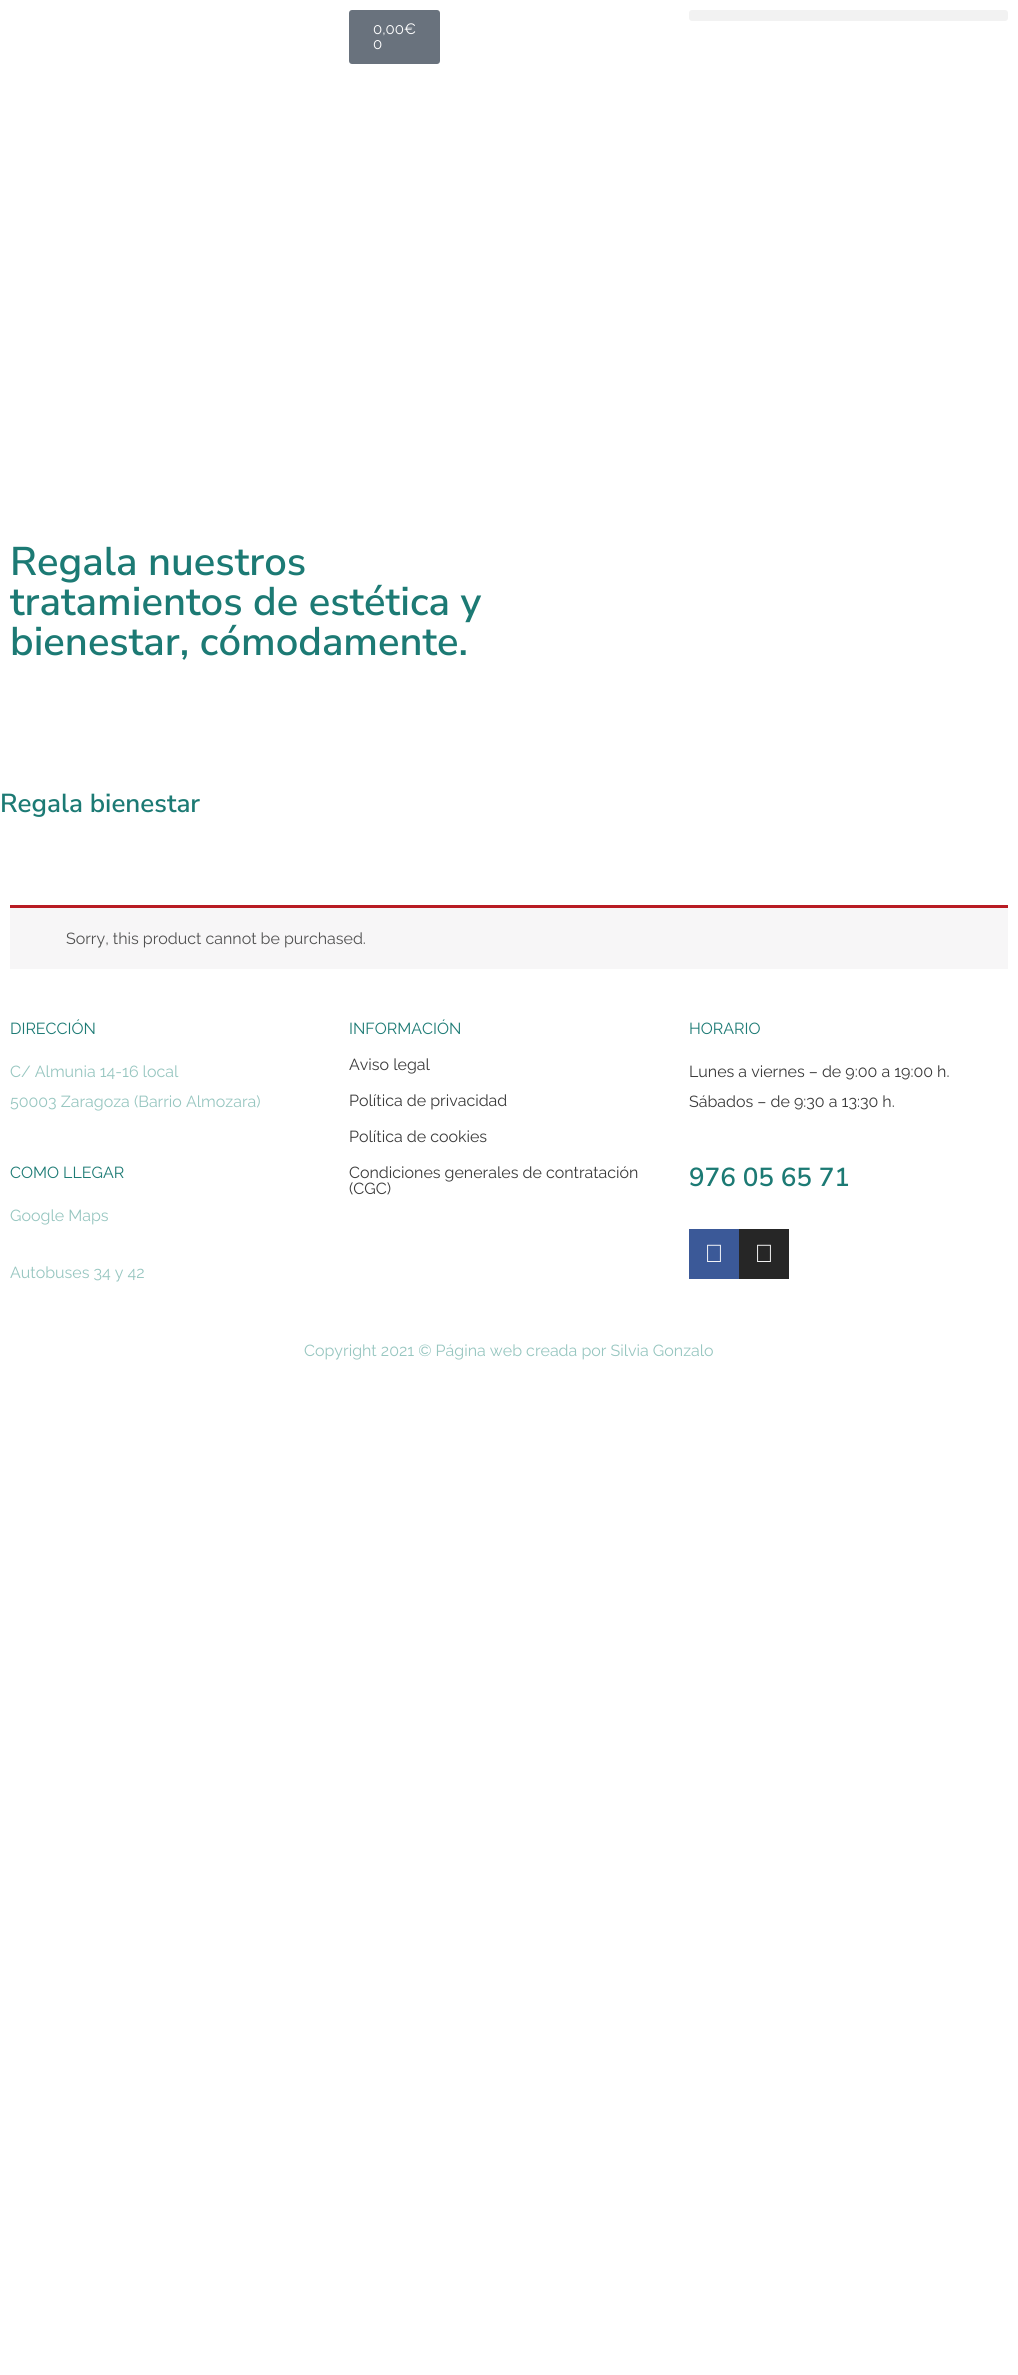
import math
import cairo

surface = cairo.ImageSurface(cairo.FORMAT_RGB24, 1018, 2375)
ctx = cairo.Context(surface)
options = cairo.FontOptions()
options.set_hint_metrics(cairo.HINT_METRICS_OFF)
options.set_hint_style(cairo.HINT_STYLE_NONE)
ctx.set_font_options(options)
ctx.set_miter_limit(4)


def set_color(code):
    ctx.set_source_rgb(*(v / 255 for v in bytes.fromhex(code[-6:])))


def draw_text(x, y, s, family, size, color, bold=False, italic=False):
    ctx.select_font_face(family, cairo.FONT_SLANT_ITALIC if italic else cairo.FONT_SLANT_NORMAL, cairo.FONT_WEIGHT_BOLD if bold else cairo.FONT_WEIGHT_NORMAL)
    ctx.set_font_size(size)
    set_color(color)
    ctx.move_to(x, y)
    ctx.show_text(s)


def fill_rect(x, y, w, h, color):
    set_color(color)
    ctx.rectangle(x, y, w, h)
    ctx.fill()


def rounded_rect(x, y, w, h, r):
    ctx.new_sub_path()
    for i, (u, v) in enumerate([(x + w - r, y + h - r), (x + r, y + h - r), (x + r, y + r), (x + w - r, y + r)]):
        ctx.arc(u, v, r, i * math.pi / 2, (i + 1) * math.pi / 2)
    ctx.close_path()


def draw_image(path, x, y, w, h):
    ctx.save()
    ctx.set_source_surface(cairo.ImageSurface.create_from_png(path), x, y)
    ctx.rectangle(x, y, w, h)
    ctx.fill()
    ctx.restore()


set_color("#ffffff")
ctx.paint()
set_color("#f2f2f2")
rounded_rect(689, 10, 319, 11, 3)
ctx.fill()
set_color("#69727d")
rounded_rect(349, 10, 91, 54, 3)
ctx.fill()
draw_text(373, 34, "0,00€", "Raleway Thin", 15, "#ffffff")
draw_text(373, 49, "0", "Raleway Thin", 15, "#ffffff")
draw_text(10, 575, "Regala nuestros", "Nunito Sans ExtraLight", 40, "#1c7a74")
draw_text(10, 615, "tratamientos de estética y", "Nunito Sans ExtraLight", 40, "#1c7a74")
draw_text(10, 655, "bienestar, cómodamente.", "Nunito Sans ExtraLight", 40, "#1c7a74")
draw_text(0, 812, "Regala bienestar", "Nunito Sans ExtraLight", 26, "#1c7a74")
fill_rect(10, 908, 998, 61, "#f7f6f7")
fill_rect(10, 905, 998, 3, "#b81c23")
draw_text(66, 944, "Sorry, this product cannot be purchased.", "Raleway Thin", 16, "#515151")
draw_text(10, 1034, "DIRECCIÓN", "Raleway Thin", 16, "#1c7a74")
draw_text(10, 1077, "C/ Almunia 14-16 local", "Raleway Thin", 16, "#97c6c0")
draw_text(10, 1107, "50003 Zaragoza (Barrio Almozara)", "Raleway Thin", 16, "#97c6c0")
draw_text(10, 1178, "COMO LLEGAR", "Raleway Thin", 16, "#1c7a74")
draw_text(10, 1221, "Google Maps", "Raleway Thin", 16, "#97c6c0")
draw_text(10, 1278, "Autobuses 34 y 42", "Raleway Thin", 16, "#97c6c0")
draw_text(349, 1034, "INFORMACIÓN", "Raleway Thin", 16, "#1c7a74")
draw_text(349, 1070, "Aviso legal", "Raleway Thin", 16, "#3a3a3a")
draw_text(349, 1106, "Política de privacidad", "Raleway Thin", 16, "#3a3a3a")
draw_text(349, 1142, "Política de cookies", "Raleway Thin", 16, "#3a3a3a")
draw_text(349, 1178, "Condiciones generales de contratación", "Raleway Thin", 16, "#3a3a3a")
draw_text(349, 1194, "(CGC)", "Raleway Thin", 16, "#3a3a3a")
draw_text(689, 1034, "HORARIO", "Raleway Thin", 16, "#1c7a74")
draw_text(689, 1077, "Lunes a viernes – de 9:00 a 19:00 h.", "Raleway Thin", 16, "#3a3a3a")
draw_text(689, 1107, "Sábados – de 9:30 a 13:30 h.", "Raleway Thin", 16, "#3a3a3a")
draw_text(689, 1186, "976 05 65 71", "Nunito Sans ExtraLight", 26, "#1c7a74")
fill_rect(689, 1229, 50, 50, "#3b5998")
draw_image("assets/img1.png", 707, 1244, 14, 18)
fill_rect(739, 1229, 50, 50, "#262626")
draw_image("assets/img2.png", 757, 1244, 14, 18)
draw_text(304, 1356, "Copyright 2021 © Página web creada por Silvia Gonzalo", "Raleway Thin", 16, "#97c6c0")
surface.write_to_png("output.png")
